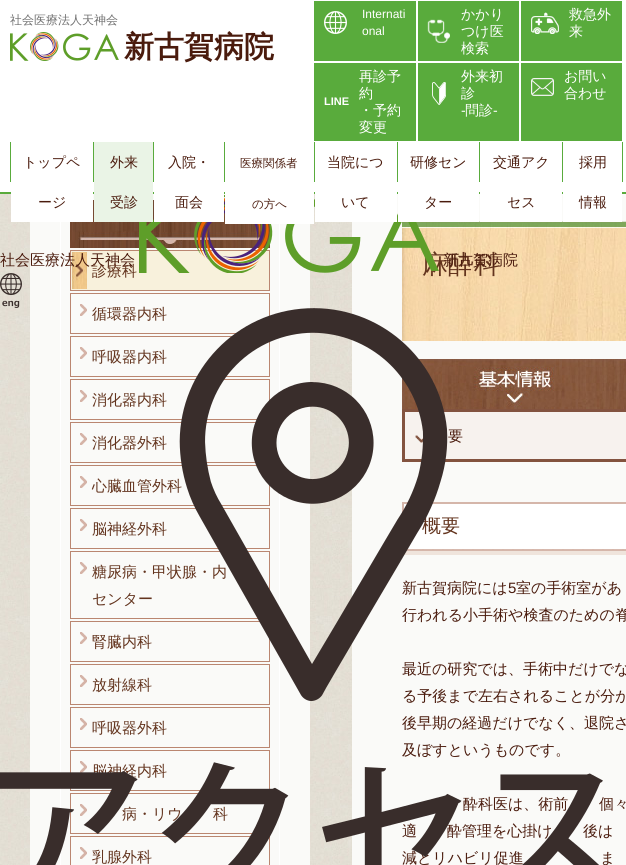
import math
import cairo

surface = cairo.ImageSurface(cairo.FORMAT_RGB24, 626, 865)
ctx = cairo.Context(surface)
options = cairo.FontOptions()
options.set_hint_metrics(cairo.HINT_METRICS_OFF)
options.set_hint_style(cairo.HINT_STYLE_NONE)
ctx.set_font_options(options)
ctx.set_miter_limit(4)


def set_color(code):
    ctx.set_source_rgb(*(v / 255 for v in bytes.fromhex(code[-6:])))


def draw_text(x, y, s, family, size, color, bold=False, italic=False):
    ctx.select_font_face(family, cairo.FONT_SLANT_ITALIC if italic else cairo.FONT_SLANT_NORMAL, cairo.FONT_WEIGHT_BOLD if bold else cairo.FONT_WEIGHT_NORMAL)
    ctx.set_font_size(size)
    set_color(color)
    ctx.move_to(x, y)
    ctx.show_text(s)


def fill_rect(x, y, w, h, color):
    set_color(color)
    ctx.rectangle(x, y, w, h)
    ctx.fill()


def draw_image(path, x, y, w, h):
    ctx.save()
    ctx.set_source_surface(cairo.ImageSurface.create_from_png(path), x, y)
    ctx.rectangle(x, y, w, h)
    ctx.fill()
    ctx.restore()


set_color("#ffffff")
ctx.paint()
draw_image("assets/img1.png", 0, 194, 352, 671)
fill_rect(30, 194, 280, 671, "#fafaf8")
ctx.rectangle(60.5, 190.5, 219, 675)
set_color("#ffffff")
ctx.set_line_width(1)
ctx.stroke()
fill_rect(0, 192, 626, 2, "#59ab3c")
draw_text(10, 24, "社会医療法人天神会", "WenQuanYi Zen Hei Medium", 12, "#707070")
draw_image("assets/img2.png", 10, 32, 109, 29)
draw_text(124, 57, "新古賀病院", "WenQuanYi Zen Hei", 30, "#4a1b0d", bold=True)
fill_rect(314, 1, 102, 60, "#59ab3c")
draw_image("assets/img3.png", 324, 11, 23, 23)
draw_text(362, 18, "Internati", "Liberation Sans", 12, "#ffffff")
draw_text(362, 35, "onal", "Liberation Sans", 12, "#ffffff")
fill_rect(418, 1, 101, 60, "#59ab3c")
draw_image("assets/img4.png", 427, 19, 23, 24)
draw_text(461, 19, "かかり", "WenQuanYi Zen Hei Medium", 14, "#ffffff")
draw_text(461, 36, "つけ医", "WenQuanYi Zen Hei Medium", 14, "#ffffff")
draw_text(461, 53, "検索", "WenQuanYi Zen Hei Medium", 14, "#ffffff")
fill_rect(521, 1, 101, 60, "#59ab3c")
draw_image("assets/img5.png", 531, 12, 28, 22)
draw_text(569, 19, "救急外", "WenQuanYi Zen Hei Medium", 14, "#ffffff")
draw_text(569, 36, "来", "WenQuanYi Zen Hei Medium", 14, "#ffffff")
fill_rect(314, 63, 102, 78, "#59ab3c")
draw_text(324, 105, "LINE", "Liberation Sans", 11, "#ffffff", bold=True)
draw_text(359, 81, "再診予", "WenQuanYi Zen Hei Medium", 14, "#ffffff")
draw_text(359, 98, "約", "WenQuanYi Zen Hei Medium", 14, "#ffffff")
draw_text(359, 115, "・予約", "WenQuanYi Zen Hei Medium", 14, "#ffffff")
draw_text(359, 132, "変更", "WenQuanYi Zen Hei Medium", 14, "#ffffff")
fill_rect(418, 63, 101, 78, "#59ab3c")
draw_image("assets/img6.png", 432, 82, 14, 23)
draw_text(461, 81, "外来初", "WenQuanYi Zen Hei Medium", 14, "#ffffff")
draw_text(461, 98, "診", "WenQuanYi Zen Hei Medium", 14, "#ffffff")
draw_text(461, 115, "-", "Liberation Sans", 14, "#ffffff")
draw_text(465, 115, "問診", "WenQuanYi Zen Hei Medium", 14, "#ffffff")
draw_text(493, 115, "-", "Liberation Sans", 14, "#ffffff")
fill_rect(521, 63, 101, 78, "#59ab3c")
draw_image("assets/img7.png", 531, 78, 23, 18)
draw_text(564, 81, "お問い", "WenQuanYi Zen Hei Medium", 14, "#ffffff")
draw_text(564, 98, "合わせ", "WenQuanYi Zen Hei Medium", 14, "#ffffff")
fill_rect(93, 142, 1, 40, "#59ab3c")
fill_rect(10, 142, 1, 40, "#59ab3c")
draw_image("assets/img11.png", 70, 200, 200, 48)
fill_rect(11, 192, 82, 30, "#ffffff")
draw_text(23, 167, "トップペ", "WenQuanYi Zen Hei Medium", 14, "#4a1b0d")
draw_text(38, 207, "ージ", "WenQuanYi Zen Hei Medium", 14, "#4a1b0d")
fill_rect(153, 142, 1, 40, "#59ab3c")
set_color("#f8f1dc")
ctx.rectangle(70.5, 250.5, 199, 40)
ctx.fill_preserve()
set_color("#ba8670")
ctx.stroke()
fill_rect(352, 194, 274, 671, "#fafaf8")
draw_image("assets/img14.png", 402, 221, 224, 120)
draw_text(422, 273, "麻酔科", "WenQuanYi Zen Hei Medium", 26, "#63341e")
draw_image("assets/img8.png", 139, 194, 300, 79)
fill_rect(94, 142, 59, 80, "#eaf4e6")
draw_text(110, 167, "外来", "WenQuanYi Zen Hei Medium", 14, "#4a1b0d")
draw_text(110, 207, "受診", "WenQuanYi Zen Hei Medium", 14, "#4a1b0d")
fill_rect(224, 142, 1, 40, "#59ab3c")
fill_rect(154, 192, 70, 30, "#ffffff")
draw_text(168, 167, "入院・", "WenQuanYi Zen Hei Medium", 14, "#4a1b0d")
draw_text(175, 207, "面会", "WenQuanYi Zen Hei Medium", 14, "#4a1b0d")
fill_rect(314, 142, 1, 40, "#59ab3c")
fill_rect(225, 192, 89, 32, "#ffffff")
draw_text(240, 167, "医療関係者", "WenQuanYi Zen Hei Medium", 11.5, "#4a1b0d")
draw_text(252, 208, "の方へ", "WenQuanYi Zen Hei Medium", 11.5, "#4a1b0d")
fill_rect(397, 142, 1, 40, "#59ab3c")
fill_rect(315, 192, 82, 30, "#ffffff")
draw_text(327, 167, "当院につ", "WenQuanYi Zen Hei Medium", 14, "#4a1b0d")
draw_text(341, 207, "いて", "WenQuanYi Zen Hei Medium", 14, "#4a1b0d")
fill_rect(479, 142, 1, 40, "#59ab3c")
fill_rect(398, 192, 81, 30, "#ffffff")
draw_text(410, 167, "研修セン", "WenQuanYi Zen Hei Medium", 14, "#4a1b0d")
draw_text(424, 207, "ター", "WenQuanYi Zen Hei Medium", 14, "#4a1b0d")
fill_rect(562, 142, 1, 40, "#59ab3c")
fill_rect(480, 192, 82, 30, "#ffffff")
draw_text(493, 167, "交通アク", "WenQuanYi Zen Hei Medium", 14, "#4a1b0d")
draw_text(507, 207, "セス", "WenQuanYi Zen Hei Medium", 14, "#4a1b0d")
fill_rect(622, 142, 1, 40, "#59ab3c")
fill_rect(563, 192, 59, 30, "#ffffff")
draw_text(579, 167, "採用", "WenQuanYi Zen Hei Medium", 14, "#4a1b0d")
draw_text(579, 207, "情報", "WenQuanYi Zen Hei Medium", 14, "#4a1b0d")
draw_image("assets/img12.png", 72, 252, 15, 37)
draw_text(0, 265, "社会医療法人天神会", "WenQuanYi Zen Hei Medium", 15, "#4a1b0d")
draw_text(443, 265, "新古賀病院", "WenQuanYi Zen Hei Medium", 15, "#4a1b0d")
draw_image("assets/img9.png", 0, 273, 22, 35)
ctx.rectangle(70.5, 293.5, 199, 40)
set_color("#ba8670")
ctx.stroke()
draw_image("assets/img13.png", 80, 304, 7, 12)
draw_text(92, 319, "循環器内科", "WenQuanYi Zen Hei Medium", 15, "#63341e")
ctx.rectangle(70.5, 336.5, 199, 40)
set_color("#ba8670")
ctx.stroke()
draw_image("assets/img13.png", 80, 347, 7, 12)
draw_text(92, 362, "呼吸器内科", "WenQuanYi Zen Hei Medium", 15, "#63341e")
ctx.rectangle(70.5, 379.5, 199, 40)
set_color("#ba8670")
ctx.stroke()
draw_image("assets/img13.png", 80, 390, 7, 12)
draw_text(92, 405, "消化器内科", "WenQuanYi Zen Hei Medium", 15, "#63341e")
ctx.rectangle(70.5, 422.5, 199, 40)
set_color("#ba8670")
ctx.stroke()
draw_image("assets/img13.png", 80, 433, 7, 12)
draw_text(92, 448, "消化器外科", "WenQuanYi Zen Hei Medium", 15, "#63341e")
ctx.rectangle(70.5, 465.5, 199, 40)
set_color("#ba8670")
ctx.stroke()
draw_image("assets/img13.png", 80, 476, 7, 12)
draw_text(92, 491, "心臓血管外科", "WenQuanYi Zen Hei Medium", 15, "#63341e")
ctx.rectangle(70.5, 508.5, 199, 40)
set_color("#ba8670")
ctx.stroke()
draw_image("assets/img13.png", 80, 519, 7, 12)
draw_text(92, 534, "脳神経外科", "WenQuanYi Zen Hei Medium", 15, "#63341e")
ctx.rectangle(70.5, 551.5, 199, 67)
set_color("#ba8670")
ctx.stroke()
draw_image("assets/img13.png", 80, 562, 7, 12)
draw_text(92, 577, "糖尿病・甲状腺・内", "WenQuanYi Zen Hei Medium", 15, "#63341e")
draw_text(92, 604, "センター", "WenQuanYi Zen Hei Medium", 15, "#63341e")
ctx.rectangle(70.5, 621.5, 199, 40)
set_color("#ba8670")
ctx.stroke()
draw_image("assets/img13.png", 80, 632, 7, 12)
draw_text(92, 647, "腎臓内科", "WenQuanYi Zen Hei Medium", 15, "#63341e")
ctx.rectangle(70.5, 664.5, 199, 40)
set_color("#ba8670")
ctx.stroke()
draw_image("assets/img13.png", 80, 675, 7, 12)
draw_text(92, 690, "放射線科", "WenQuanYi Zen Hei Medium", 15, "#63341e")
ctx.rectangle(70.5, 707.5, 199, 40)
set_color("#ba8670")
ctx.stroke()
draw_image("assets/img13.png", 80, 718, 7, 12)
draw_text(92, 733, "呼吸器外科", "WenQuanYi Zen Hei Medium", 15, "#63341e")
ctx.rectangle(70.5, 750.5, 199, 40)
set_color("#ba8670")
ctx.stroke()
draw_image("assets/img13.png", 80, 761, 7, 12)
draw_text(92, 776, "脳神経内科", "WenQuanYi Zen Hei Medium", 15, "#63341e")
ctx.rectangle(70.5, 793.5, 199, 40)
set_color("#ba8670")
ctx.stroke()
draw_image("assets/img13.png", 80, 804, 7, 12)
draw_text(122, 819, "病・リウ", "WenQuanYi Zen Hei Medium", 15, "#63341e")
draw_text(213, 819, "科", "WenQuanYi Zen Hei Medium", 15, "#63341e")
ctx.rectangle(70.5, 836.5, 199, 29)
set_color("#ba8670")
ctx.stroke()
draw_image("assets/img13.png", 80, 847, 7, 12)
draw_text(92, 862, "乳腺外科", "WenQuanYi Zen Hei Medium", 15, "#63341e")
draw_image("assets/img15.png", 402, 359, 224, 50)
set_color("#f7f2ee")
ctx.rectangle(403.5, 410.5, 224, 50)
ctx.fill_preserve()
set_color("#83533f")
ctx.set_line_width(3)
ctx.stroke()
draw_image("assets/img16.png", 415, 435, 9, 8)
draw_text(448, 441, "要", "WenQuanYi Zen Hei Medium", 15, "#4a1b0d")
fill_rect(404, 504, 222, 45, "#ffffff")
fill_rect(402, 502, 224, 2, "#d5b6aa")
fill_rect(402, 502, 2, 11, "#d5b6aa")
draw_text(422, 532, "概要", "WenQuanYi Zen Hei Medium", 19, "#63341e")
draw_image("assets/img17.png", 404, 549, 222, 6)
draw_text(402, 593, "新古賀病院には", "WenQuanYi Zen Hei Medium", 15, "#4a1b0d")
draw_text(508, 593, "5", "Liberation Sans", 15, "#4a1b0d")
draw_text(516, 593, "室の手術室があ", "WenQuanYi Zen Hei Medium", 15, "#4a1b0d")
draw_text(402, 620, "行われる小手術や検査のための脊", "WenQuanYi Zen Hei Medium", 15, "#4a1b0d")
draw_text(402, 674, "最近の研究では、手術中だけでな", "WenQuanYi Zen Hei Medium", 15, "#4a1b0d")
draw_text(402, 701, "る予後まで左右されることが分か", "WenQuanYi Zen Hei Medium", 15, "#4a1b0d")
draw_text(402, 728, "後早期の経過だけでなく、退院さ", "WenQuanYi Zen Hei Medium", 15, "#4a1b0d")
draw_text(402, 755, "及ぼすというものです。", "WenQuanYi Zen Hei Medium", 15, "#4a1b0d")
draw_text(463, 809, "酔科医は、術前", "WenQuanYi Zen Hei Medium", 15, "#4a1b0d")
draw_text(599, 809, "個々", "WenQuanYi Zen Hei Medium", 15, "#4a1b0d")
draw_text(402, 836, "適", "WenQuanYi Zen Hei Medium", 15, "#4a1b0d")
draw_text(447, 836, "酔管理を心掛け", "WenQuanYi Zen Hei Medium", 15, "#4a1b0d")
draw_text(583, 836, "後は", "WenQuanYi Zen Hei Medium", 15, "#4a1b0d")
draw_text(402, 863, "減とリハビリ促進", "WenQuanYi Zen Hei Medium", 15, "#4a1b0d")
draw_text(600, 863, "ま", "WenQuanYi Zen Hei Medium", 15, "#4a1b0d")
draw_image("assets/img10.png", 0, 308, 603, 557)
draw_text(92, 276, "診療科", "WenQuanYi Zen Hei Medium", 15, "#63341e")
surface.write_to_png("output.png")
